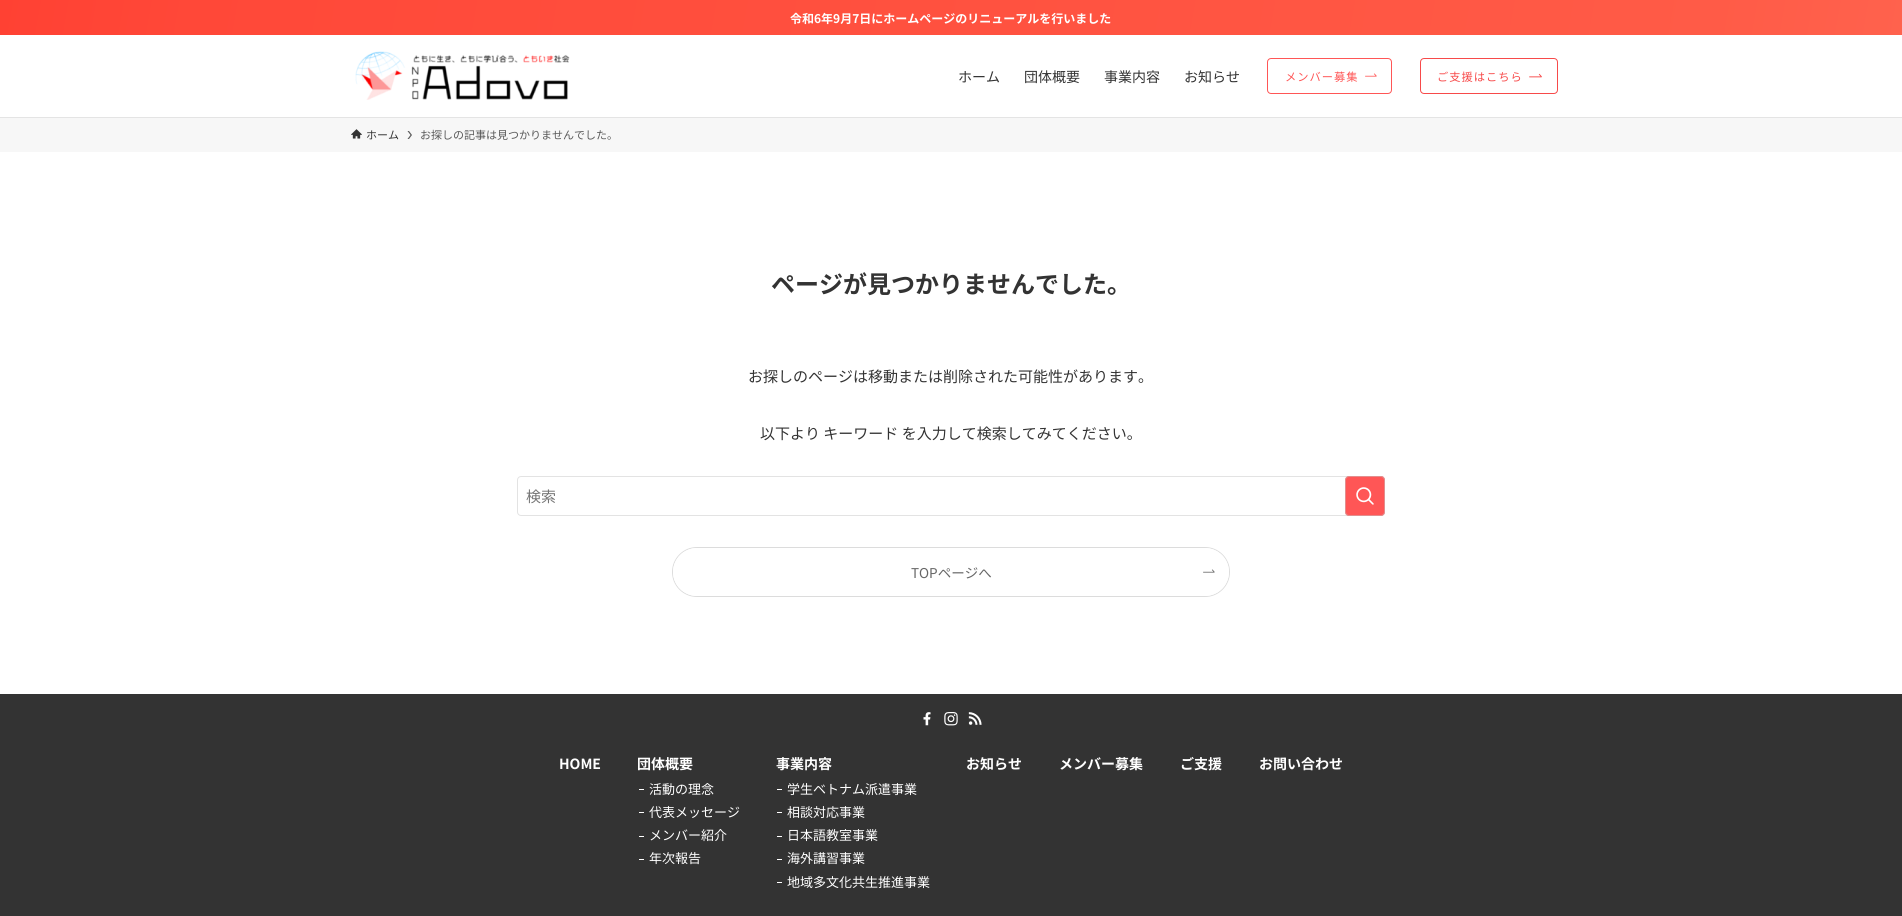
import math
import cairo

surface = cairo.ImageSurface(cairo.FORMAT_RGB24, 1902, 916)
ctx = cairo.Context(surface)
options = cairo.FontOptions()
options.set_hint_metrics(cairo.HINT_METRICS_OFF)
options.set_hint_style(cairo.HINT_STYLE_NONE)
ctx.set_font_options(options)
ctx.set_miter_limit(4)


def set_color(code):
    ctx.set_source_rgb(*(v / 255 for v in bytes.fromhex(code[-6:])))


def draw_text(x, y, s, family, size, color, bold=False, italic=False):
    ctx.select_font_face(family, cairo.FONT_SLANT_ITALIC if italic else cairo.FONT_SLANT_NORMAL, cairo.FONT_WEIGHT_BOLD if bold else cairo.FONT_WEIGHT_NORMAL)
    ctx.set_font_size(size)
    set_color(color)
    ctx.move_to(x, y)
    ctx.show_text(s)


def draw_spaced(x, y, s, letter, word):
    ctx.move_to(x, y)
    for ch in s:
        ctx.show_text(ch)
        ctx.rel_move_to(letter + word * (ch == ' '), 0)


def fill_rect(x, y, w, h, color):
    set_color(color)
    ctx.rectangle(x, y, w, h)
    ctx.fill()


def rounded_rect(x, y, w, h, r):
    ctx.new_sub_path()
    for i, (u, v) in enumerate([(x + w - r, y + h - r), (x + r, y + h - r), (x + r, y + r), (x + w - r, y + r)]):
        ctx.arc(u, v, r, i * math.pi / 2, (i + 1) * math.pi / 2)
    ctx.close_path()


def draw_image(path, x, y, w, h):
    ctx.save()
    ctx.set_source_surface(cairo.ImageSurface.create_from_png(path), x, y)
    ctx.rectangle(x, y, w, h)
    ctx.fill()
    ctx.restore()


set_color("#ffffff")
ctx.paint()
gradient = cairo.LinearGradient(26, -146, 1876, 181)
gradient.add_color_stop_rgba(0, 1, 0.255, 0.2, 1)
gradient.add_color_stop_rgba(0.1, 1, 0.282, 0.22, 1)
gradient.add_color_stop_rgba(0.9, 1, 0.357, 0.278, 1)
gradient.add_color_stop_rgba(1, 1, 0.384, 0.302, 1)
ctx.set_source(gradient)
ctx.rectangle(0, 0, 1902, 35)
ctx.fill()
draw_text(790, 23, "令和6年9月7日にホームページのリニューアルを行いました", "Noto Sans JP", 12, "#ffffff", bold=True)
fill_rect(0, 117, 1902, 1, "#e4e4e4")
draw_image("assets/img1.png", 355, 51, 215, 49)
draw_text(958, 82, "ホーム", "Noto Sans JP", 14, "#333333")
draw_text(1024, 82, "団体概要", "Noto Sans JP", 14, "#333333")
draw_text(1104, 82, "事業内容", "Noto Sans JP", 14, "#333333")
draw_text(1184, 82, "お知らせ", "Noto Sans JP", 14, "#333333")
rounded_rect(1267.5, 58.5, 124, 35, 3.5)
set_color("#ff5656")
ctx.set_line_width(1)
ctx.stroke()
ctx.set_font_size(11.25)
draw_spaced(1285, 81, "メンバー募集", 1, 0)
draw_image("assets/img2.png", 1365, 73, 12, 4)
rounded_rect(1420.5, 58.5, 137, 35, 3.5)
set_color("#f74a4a")
ctx.stroke()
draw_spaced(1437, 81, "ご支援はこちら", 1, 0)
draw_image("assets/img3.png", 1529, 73, 13, 5)
fill_rect(0, 118, 1902, 34, "#f7f7f7")
draw_image("assets/img4.png", 351, 129, 11, 10)
draw_text(366, 139, "ホーム", "Noto Sans JP", 11, "#333333")
set_color("#5a5a5a")
ctx.new_path()
ctx.move_to(409, 131)
ctx.line_to(407.5, 131)
ctx.line_to(410.5, 135)
ctx.line_to(407.5, 139)
ctx.line_to(409, 139)
ctx.line_to(412, 135)
ctx.close_path()
ctx.fill()
draw_text(420, 139, "お探しの記事は見つかりませんでした。", "Noto Sans JP", 11, "#5a5a5a")
draw_text(771, 293, "ページが見つかりませんでした。", "Noto Sans JP", 24, "#333333", bold=True)
draw_text(748, 382, "お探しのページは移動または削除された可能性があります。", "Noto Sans JP", 15, "#333333")
draw_text(760, 439, "以下より キーワード を入力して検索してみてください。", "Noto Sans JP", 15, "#333333")
rounded_rect(517.5, 476.5, 867, 39, 3.5)
set_color("#e3e3e3")
ctx.stroke()
draw_text(526, 502, "検索", "Noto Sans JP", 15, "#757575")
set_color("#ff5656")
rounded_rect(1345, 476, 40, 40, 4)
ctx.fill()
rounded_rect(1345.5, 476.5, 39, 39, 3.5)
ctx.set_source_rgba(0.78, 0.78, 0.78, 0.5)
ctx.stroke()
draw_image("assets/img5.png", 1356, 487, 18, 18)
rounded_rect(672.5, 547.5, 557, 49, 24.5)
set_color("#dcdcdc")
ctx.stroke()
set_color("#ffffff")
rounded_rect(673, 548, 556, 48, 24)
ctx.fill()
draw_text(911, 578, "TOPページへ", "Noto Sans JP", 13.5, "#666666")
draw_image("assets/img6.png", 1203, 569, 12, 4)
fill_rect(0, 694, 1902, 222, "#333333")
draw_image("assets/img7.png", 923, 712, 8, 14)
draw_image("assets/img8.png", 944, 712, 14, 14)
draw_image("assets/img9.png", 968, 712, 14, 13)
draw_text(559, 769, "HOME", "Noto Sans JP", 14, "#ffffff", bold=True)
draw_text(637, 769, "団体概要", "Noto Sans JP", 14, "#ffffff", bold=True)
fill_rect(639, 789, 5, 1, "#ffffff")
draw_text(649, 794, "活動の理念", "Noto Sans JP", 13, "#ffffff")
fill_rect(639, 812, 5, 1, "#ffffff")
draw_text(649, 817, "代表メッセージ", "Noto Sans JP", 13, "#ffffff")
fill_rect(639, 836, 5, 1, "#ffffff")
draw_text(649, 840, "メンバー紹介", "Noto Sans JP", 13, "#ffffff")
fill_rect(639, 859, 5, 1, "#ffffff")
draw_text(649, 863, "年次報告", "Noto Sans JP", 13, "#ffffff")
draw_text(776, 769, "事業内容", "Noto Sans JP", 14, "#ffffff", bold=True)
fill_rect(777, 789, 5, 1, "#ffffff")
draw_text(787, 794, "学生ベトナム派遣事業", "Noto Sans JP", 13, "#ffffff")
fill_rect(777, 812, 5, 1, "#ffffff")
draw_text(787, 817, "相談対応事業", "Noto Sans JP", 13, "#ffffff")
fill_rect(777, 836, 5, 1, "#ffffff")
draw_text(787, 840, "日本語教室事業", "Noto Sans JP", 13, "#ffffff")
fill_rect(777, 859, 5, 1, "#ffffff")
draw_text(787, 863, "海外講習事業", "Noto Sans JP", 13, "#ffffff")
fill_rect(777, 882, 5, 1, "#ffffff")
draw_text(787, 887, "地域多文化共生推進事業", "Noto Sans JP", 13, "#ffffff")
draw_text(966, 769, "お知らせ", "Noto Sans JP", 14, "#ffffff", bold=True)
draw_text(1059, 769, "メンバー募集", "Noto Sans JP", 14, "#ffffff", bold=True)
draw_text(1180, 769, "ご支援", "Noto Sans JP", 14, "#ffffff", bold=True)
draw_text(1259, 769, "お問い合わせ", "Noto Sans JP", 14, "#ffffff", bold=True)
surface.write_to_png("output.png")
